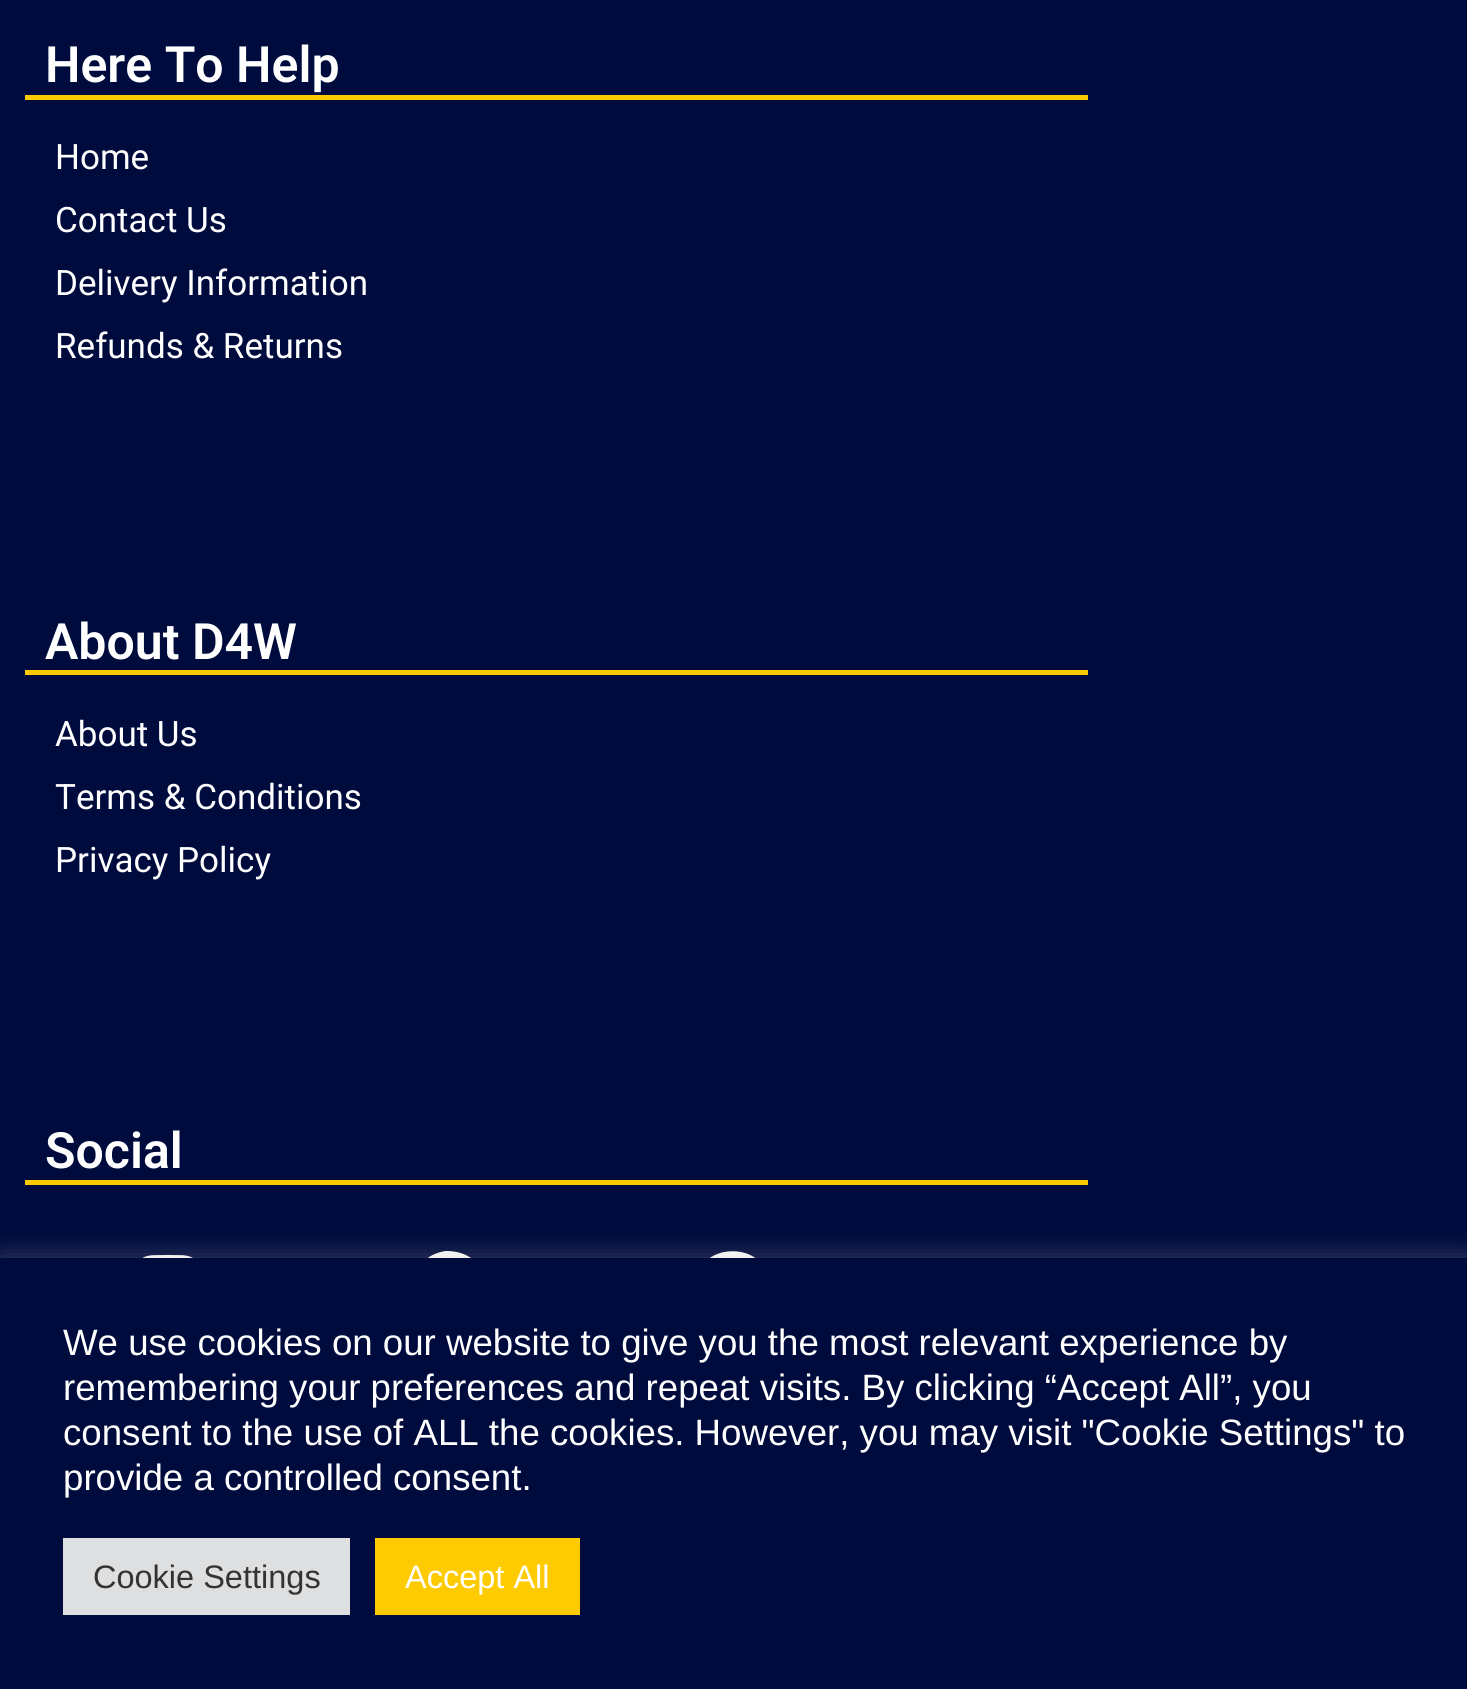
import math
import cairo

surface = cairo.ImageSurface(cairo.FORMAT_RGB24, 1467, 1689)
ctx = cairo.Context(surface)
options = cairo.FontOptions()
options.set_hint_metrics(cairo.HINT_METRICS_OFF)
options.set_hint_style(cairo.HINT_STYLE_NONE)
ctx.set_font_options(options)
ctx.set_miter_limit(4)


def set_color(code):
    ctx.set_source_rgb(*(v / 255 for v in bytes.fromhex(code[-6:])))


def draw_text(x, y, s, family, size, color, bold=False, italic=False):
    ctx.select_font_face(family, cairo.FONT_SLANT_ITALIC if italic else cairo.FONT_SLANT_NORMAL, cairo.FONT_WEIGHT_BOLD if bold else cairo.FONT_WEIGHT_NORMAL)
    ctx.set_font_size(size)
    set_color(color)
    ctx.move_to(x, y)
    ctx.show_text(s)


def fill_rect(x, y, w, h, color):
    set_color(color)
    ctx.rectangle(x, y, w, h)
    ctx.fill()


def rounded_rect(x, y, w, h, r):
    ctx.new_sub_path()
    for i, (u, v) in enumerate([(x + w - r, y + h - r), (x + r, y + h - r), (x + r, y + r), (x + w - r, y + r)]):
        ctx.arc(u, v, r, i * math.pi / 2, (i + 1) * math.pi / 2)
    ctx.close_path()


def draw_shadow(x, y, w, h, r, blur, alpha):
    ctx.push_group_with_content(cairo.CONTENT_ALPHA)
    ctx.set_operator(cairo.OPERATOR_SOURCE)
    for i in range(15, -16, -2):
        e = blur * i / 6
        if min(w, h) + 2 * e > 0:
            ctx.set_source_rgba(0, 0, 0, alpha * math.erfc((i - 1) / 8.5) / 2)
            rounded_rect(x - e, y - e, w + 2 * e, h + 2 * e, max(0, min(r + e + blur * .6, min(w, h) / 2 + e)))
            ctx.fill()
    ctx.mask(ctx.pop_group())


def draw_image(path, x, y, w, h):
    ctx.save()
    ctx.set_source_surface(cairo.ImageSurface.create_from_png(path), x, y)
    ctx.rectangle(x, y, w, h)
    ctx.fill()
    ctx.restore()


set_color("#000b3d")
ctx.paint()
draw_text(45, 82, "Here To Help", "Roboto SemiBold", 50, "#ffffff")
fill_rect(25, 95, 1063, 5, "#feca00")
draw_text(55, 169, "Home", "Roboto", 35, "#ffffff")
draw_text(55, 232, "Contact Us", "Roboto", 35, "#ffffff")
draw_text(55, 295, "Delivery Information", "Roboto", 35, "#ffffff")
draw_text(55, 358, "Refunds & Returns", "Roboto", 35, "#ffffff")
draw_text(45, 659, "About D4W", "Roboto SemiBold", 50, "#ffffff")
fill_rect(25, 670, 1063, 5, "#feca00")
draw_text(55, 746, "About Us", "Roboto", 35, "#ffffff")
draw_text(55, 809, "Terms & Conditions", "Roboto", 35, "#ffffff")
draw_text(55, 872, "Privacy Policy", "Roboto", 35, "#ffffff")
draw_text(45, 1168, "Social", "Roboto SemiBold", 50, "#ffffff")
fill_rect(25, 1180, 1063, 5, "#feca00")
draw_image("assets/img1.png", 142, 1255, 51, 3)
set_color("#ffffff")
ctx.new_path()
ctx.move_to(489, 1290)
ctx.curve_to(489, 1309, 475, 1325, 456, 1328)
ctx.line_to(456, 1301)
ctx.line_to(465, 1301)
ctx.line_to(467, 1290)
ctx.line_to(456, 1290)
ctx.curve_to(456, 1279, 455, 1277, 467, 1277)
ctx.line_to(467, 1267)
ctx.curve_to(458, 1265, 446, 1266, 444, 1278)
ctx.line_to(444, 1290)
ctx.line_to(434, 1290)
ctx.line_to(434, 1301)
ctx.line_to(444, 1301)
ctx.line_to(444, 1328)
ctx.curve_to(411, 1323, 400, 1281, 425, 1260)
ctx.curve_to(431, 1255, 438, 1252, 446, 1251)
ctx.curve_to(455, 1251, 464, 1253, 471, 1258)
ctx.curve_to(482, 1265, 489, 1277, 489, 1290)
ctx.close_path()
ctx.fill()
draw_image("assets/img2.png", 710, 1251, 46, 7)
set_color("#acabab")
draw_shadow(0, 1255, 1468, 433, 0, 12.5, 0.3)
fill_rect(0, 1258, 1467, 431, "#000b3d")
draw_text(63, 1355, "We use cookies on our website to give you the most relevant experience by", "Liberation Sans", 36.65, "#ffffff")
draw_text(63, 1400, "remembering your preferences and repeat visits. By clicking “Accept All”, you", "Liberation Sans", 36.65, "#ffffff")
draw_text(63, 1445, "consent to the use of ALL the cookies. However, you may visit \"Cookie Settings\" to", "Liberation Sans", 36.65, "#ffffff")
draw_text(63, 1490, "provide a controlled consent.", "Liberation Sans", 36.65, "#ffffff")
fill_rect(63, 1538, 287, 77, "#dedfe0")
draw_text(93, 1588, "Cookie Settings", "Liberation Sans", 32.5, "#333333")
fill_rect(375, 1538, 205, 77, "#feca00")
draw_text(405, 1588, "Accept All", "Liberation Sans", 32.5, "#ffffff")
surface.write_to_png("output.png")
